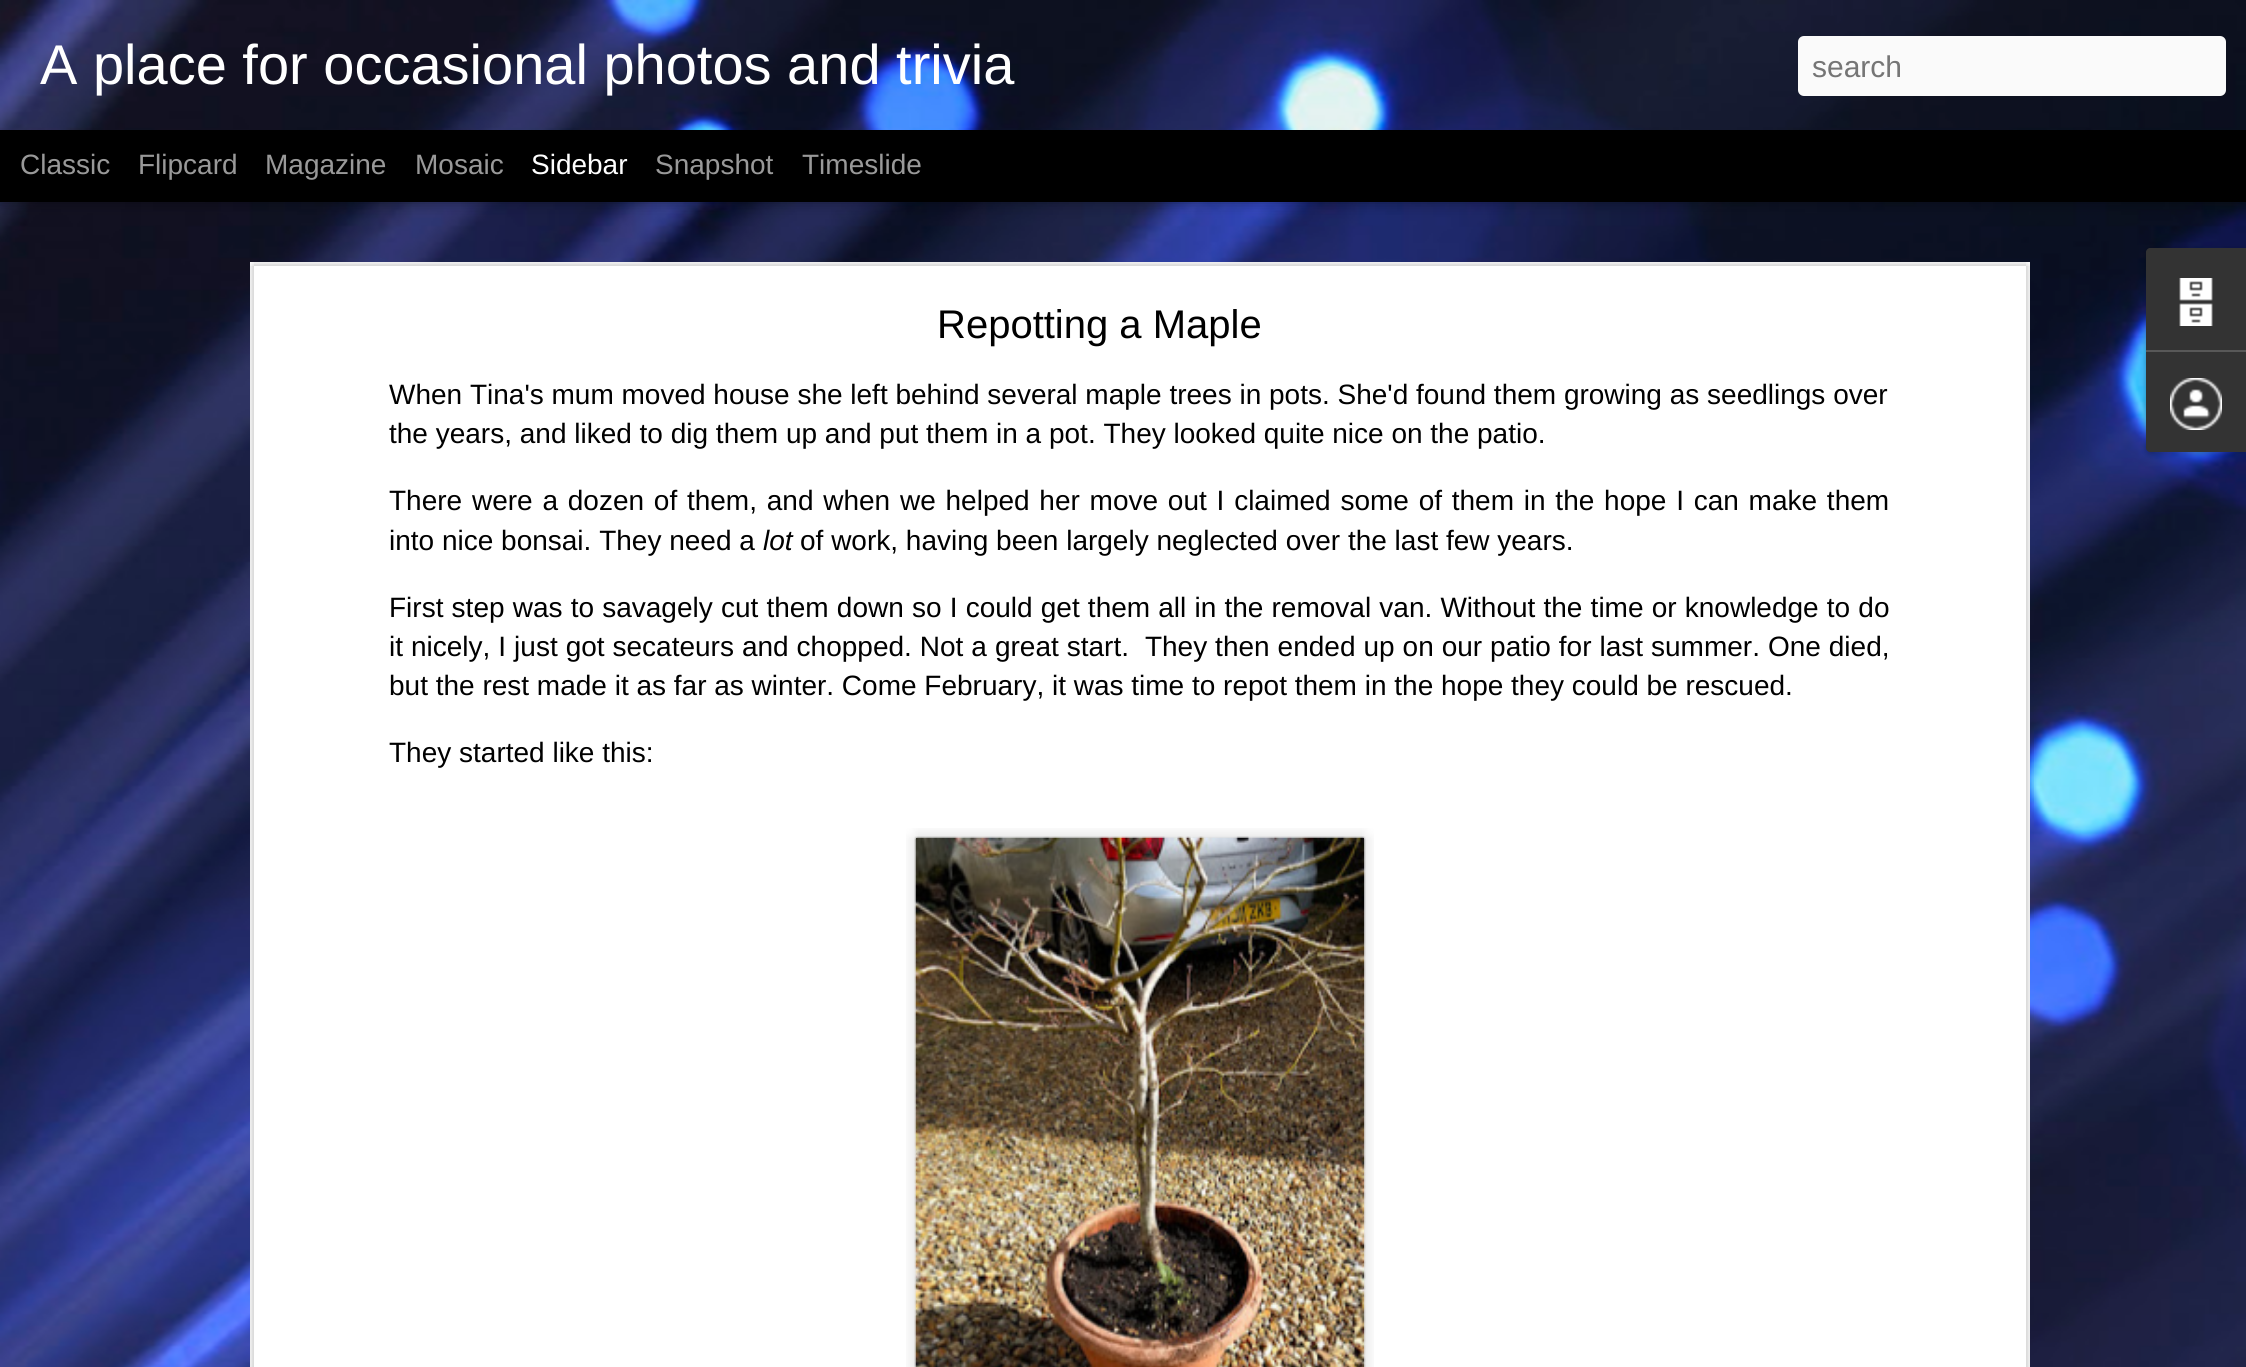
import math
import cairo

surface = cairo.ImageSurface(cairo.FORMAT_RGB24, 2246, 1367)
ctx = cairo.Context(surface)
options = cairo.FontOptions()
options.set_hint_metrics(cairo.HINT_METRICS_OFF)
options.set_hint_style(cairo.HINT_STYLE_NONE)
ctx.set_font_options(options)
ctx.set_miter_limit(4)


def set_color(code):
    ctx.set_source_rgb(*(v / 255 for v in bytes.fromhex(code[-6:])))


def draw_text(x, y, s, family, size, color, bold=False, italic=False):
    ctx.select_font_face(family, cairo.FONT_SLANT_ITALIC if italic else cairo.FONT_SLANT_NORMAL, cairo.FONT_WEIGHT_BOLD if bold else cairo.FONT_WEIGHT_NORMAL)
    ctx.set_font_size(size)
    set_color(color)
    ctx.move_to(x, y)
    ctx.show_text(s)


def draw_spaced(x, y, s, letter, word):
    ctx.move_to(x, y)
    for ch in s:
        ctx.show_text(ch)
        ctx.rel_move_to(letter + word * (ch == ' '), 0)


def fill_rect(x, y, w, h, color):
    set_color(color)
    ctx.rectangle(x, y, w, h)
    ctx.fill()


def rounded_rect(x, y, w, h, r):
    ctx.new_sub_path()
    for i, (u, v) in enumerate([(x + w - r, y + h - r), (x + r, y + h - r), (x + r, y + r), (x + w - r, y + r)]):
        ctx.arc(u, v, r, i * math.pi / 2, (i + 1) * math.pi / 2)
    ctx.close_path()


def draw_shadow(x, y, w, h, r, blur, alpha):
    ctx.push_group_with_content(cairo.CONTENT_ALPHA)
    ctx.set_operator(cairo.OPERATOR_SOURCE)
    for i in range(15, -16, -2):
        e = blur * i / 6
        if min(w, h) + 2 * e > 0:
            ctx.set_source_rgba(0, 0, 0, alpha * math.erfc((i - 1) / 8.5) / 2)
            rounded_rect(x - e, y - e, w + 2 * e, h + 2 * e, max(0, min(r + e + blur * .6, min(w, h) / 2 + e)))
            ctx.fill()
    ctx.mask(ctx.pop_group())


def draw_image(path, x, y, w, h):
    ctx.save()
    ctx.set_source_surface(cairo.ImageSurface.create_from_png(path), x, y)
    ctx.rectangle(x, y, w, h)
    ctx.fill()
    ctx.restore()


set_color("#000000")
ctx.paint()
draw_image("assets/img2.png", 0, 202, 2246, 1165)
draw_shadow(0, 130, 2246, 70, 0, 8, 0.5)
draw_image("assets/img1.png", 0, 0, 2246, 130)
draw_text(40, 84, "A place for occasional photos and trivia", "Liberation Sans", 56, "#ffffff")
set_color("#fafafa")
rounded_rect(1798, 36, 428, 60, 6)
ctx.fill()
draw_text(1812, 77, "search", "Liberation Sans", 30, "#757575")
draw_text(20, 174, "Classic", "Liberation Sans", 28, "#999999")
draw_text(138, 174, "Flipcard", "Liberation Sans", 28, "#999999")
draw_text(265, 174, "Magazine", "Liberation Sans", 28, "#999999")
draw_text(415, 174, "Mosaic", "Liberation Sans", 28, "#999999")
draw_text(531, 174, "Sidebar", "Liberation Sans", 28, "#ffffff")
draw_text(655, 174, "Snapshot", "Liberation Sans", 28, "#999999")
draw_text(802, 174, "Timeslide", "Liberation Sans", 28, "#999999")
fill_rect(250, 262, 1780, 1105, "#ffffff")
draw_image("assets/img3.png", 250, 262, 1780, 1105)
draw_text(937, 338, "Repotting a Maple", "Liberation Sans", 40, "#000000")
draw_text(389, 404, "When Tina's mum moved house she left behind several maple trees in pots. She'd found them growing as seedlings over", "Liberation Sans", 28, "#000000")
draw_text(389, 443, "the years, and liked to dig them up and put them in a pot. They looked quite nice on the patio.", "Liberation Sans", 28, "#000000")
draw_spaced(389, 510, "There were a dozen of them, and when we helped her move out I claimed some of them in the hope I can make them", 0, 2)
draw_text(389, 550, "into nice bonsai. They need a", "Liberation Sans", 28, "#000000")
draw_text(763, 550, "lot", "Liberation Sans", 28, "#000000", italic=True)
draw_text(800, 550, "of work, having been largely neglected over the last few years.", "Liberation Sans", 28, "#000000")
draw_spaced(389, 617, "First step was to savagely cut them down so I could get them all in the removal van. Without the time or knowledge to do", 0, 0.4)
draw_spaced(389, 656, "it nicely, I just got secateurs and chopped. Not a great start.  They then ended up on our patio for last summer. One died,", 0, 0.2)
draw_text(389, 695, "but the rest made it as far as winter. Come February, it was time to repot them in the hope they could be rescued.", "Liberation Sans", 28, "#000000")
draw_text(389, 762, "They started like this:", "Liberation Sans", 28, "#000000")
draw_image("assets/img4.png", 906, 828, 468, 539)
draw_image("assets/img5.png", 914, 836, 452, 531)
set_color("#000000")
draw_shadow(2146, 250, 100, 204, 4, 3, 0.3)
set_color("#333333")
ctx.new_path()
ctx.move_to(2150, 248)
ctx.line_to(2246, 248)
ctx.line_to(2246, 350)
ctx.line_to(2146, 350)
ctx.line_to(2146, 252)
ctx.curve_to(2146, 250, 2148, 248, 2150, 248)
ctx.close_path()
ctx.fill()
draw_image("assets/img6.png", 2179, 278, 34, 48)
ctx.new_path()
ctx.move_to(2146, 350)
ctx.line_to(2246, 350)
ctx.line_to(2246, 452)
ctx.line_to(2150, 452)
ctx.curve_to(2148, 452, 2146, 450, 2146, 448)
ctx.close_path()
ctx.fill()
fill_rect(2146, 350, 100, 2, "#585858")
draw_image("assets/img7.png", 2170, 378, 52, 52)
surface.write_to_png("output.png")
